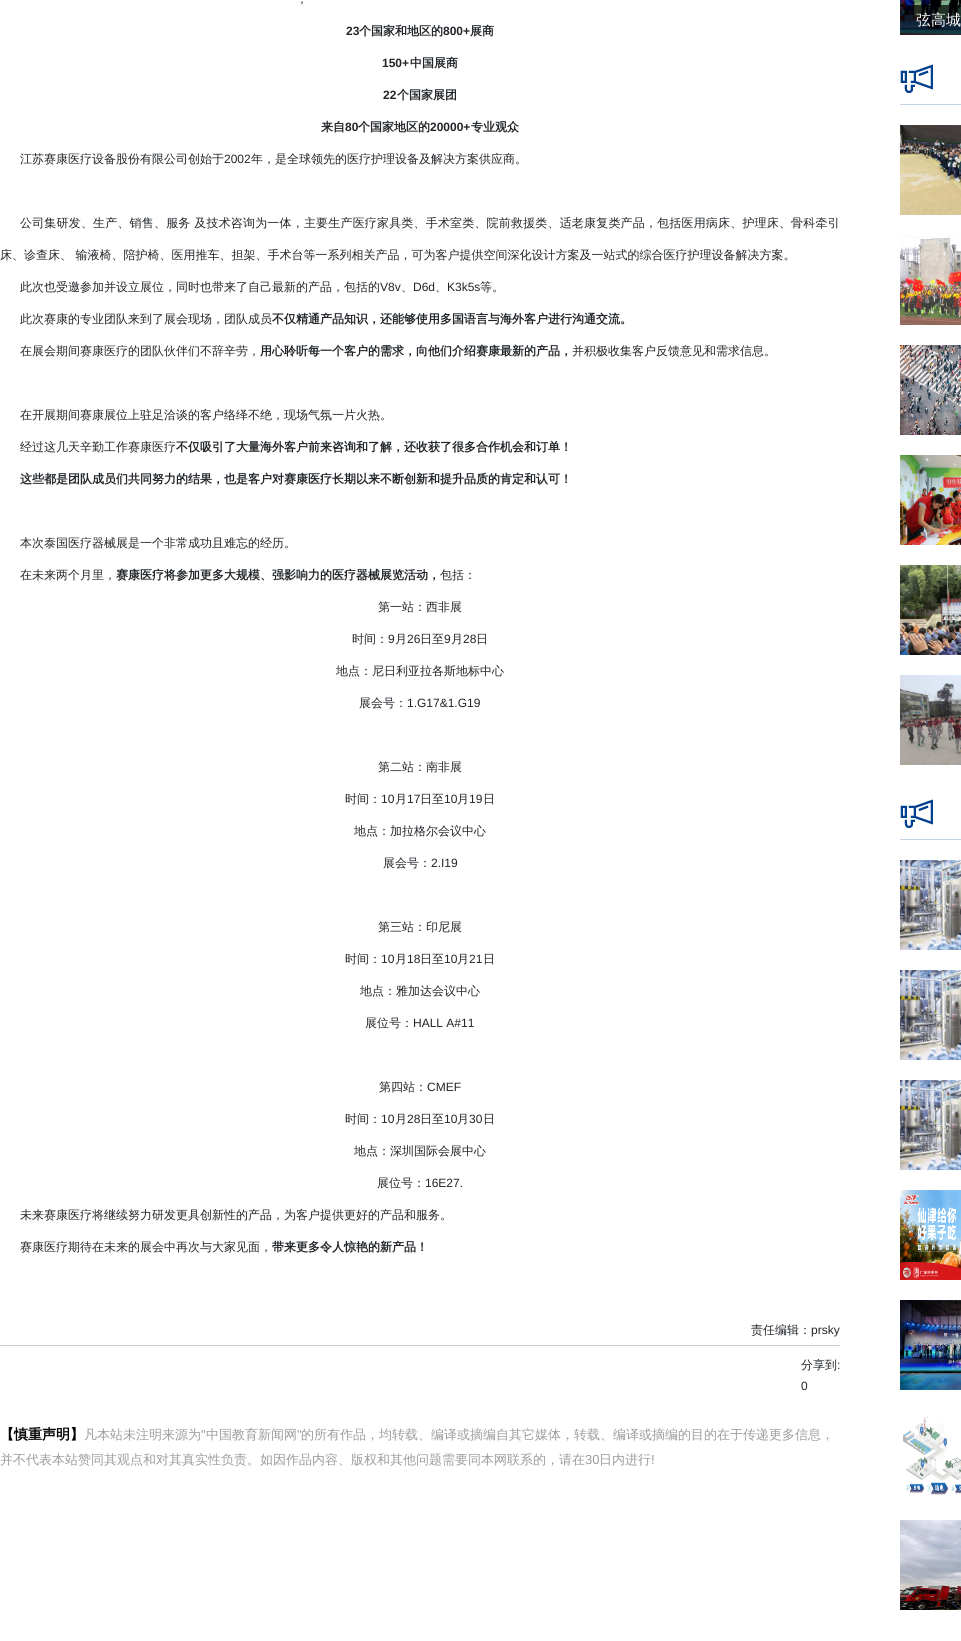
import math
import cairo

surface = cairo.ImageSurface(cairo.FORMAT_RGB24, 961, 1641)
ctx = cairo.Context(surface)
options = cairo.FontOptions()
options.set_hint_metrics(cairo.HINT_METRICS_OFF)
options.set_hint_style(cairo.HINT_STYLE_NONE)
ctx.set_font_options(options)
ctx.set_miter_limit(4)


def set_color(code):
    ctx.set_source_rgb(*(v / 255 for v in bytes.fromhex(code[-6:])))


def draw_text(x, y, s, family, size, color, bold=False, italic=False):
    ctx.select_font_face(family, cairo.FONT_SLANT_ITALIC if italic else cairo.FONT_SLANT_NORMAL, cairo.FONT_WEIGHT_BOLD if bold else cairo.FONT_WEIGHT_NORMAL)
    ctx.set_font_size(size)
    set_color(color)
    ctx.move_to(x, y)
    ctx.show_text(s)


def draw_spaced(x, y, s, letter, word):
    ctx.move_to(x, y)
    for ch in s:
        ctx.show_text(ch)
        ctx.rel_move_to(letter + word * (ch == ' '), 0)


def fill_rect(x, y, w, h, color):
    set_color(color)
    ctx.rectangle(x, y, w, h)
    ctx.fill()


def draw_image(path, x, y, w, h):
    ctx.save()
    ctx.set_source_surface(cairo.ImageSurface.create_from_png(path), x, y)
    ctx.rectangle(x, y, w, h)
    ctx.fill()
    ctx.restore()


set_color("#ffffff")
ctx.paint()
draw_text(296, 3, "，", "WenQuanYi Zen Hei Medium", 12, "#212529")
draw_text(346, 35, "23", "Liberation Sans", 12, "#212529", bold=True)
draw_text(359, 35, "个国家和地区的", "WenQuanYi Zen Hei", 12, "#212529", bold=True)
draw_text(443, 35, "800+", "Liberation Sans", 12, "#212529", bold=True)
draw_text(470, 35, "展商", "WenQuanYi Zen Hei", 12, "#212529", bold=True)
draw_text(382, 67, "150+", "Liberation Sans", 12, "#212529", bold=True)
draw_text(410, 67, "中国展商", "WenQuanYi Zen Hei", 12, "#212529", bold=True)
draw_text(383, 99, "22", "Liberation Sans", 12, "#212529", bold=True)
draw_text(397, 99, "个国家展团", "WenQuanYi Zen Hei", 12, "#212529", bold=True)
draw_text(321, 131, "来自", "WenQuanYi Zen Hei", 12, "#212529", bold=True)
draw_text(345, 131, "80", "Liberation Sans", 12, "#212529", bold=True)
draw_text(358, 131, "个国家地区的", "WenQuanYi Zen Hei", 12, "#212529", bold=True)
draw_text(430, 131, "20000+", "Liberation Sans", 12, "#212529", bold=True)
draw_text(471, 131, "专业观众", "WenQuanYi Zen Hei", 12, "#212529", bold=True)
draw_text(20, 163, "江苏赛康医疗设备股份有限公司创始于", "WenQuanYi Zen Hei Medium", 12, "#212529")
draw_text(224, 163, "2002", "Liberation Sans", 12, "#212529")
draw_text(251, 163, "年，是全球领先的医疗护理设备及解决方案供应商。", "WenQuanYi Zen Hei Medium", 12, "#212529")
draw_spaced(20, 227, "公司集研发、生产、销售、服务 及技术咨询为一体，主要生产医疗家具类、手术室类、院前救援类、适老康复类产品，包括医用病床、护理床、骨科牵引", 0.18, 0)
draw_text(0, 259, "床、诊查床、 输液椅、陪护椅、医用推车、担架、手术台等一系列相关产品，可为客户提供空间深化设计方案及一站式的综合医疗护理设备解决方案。", "WenQuanYi Zen Hei Medium", 12, "#212529")
draw_text(20, 291, "此次也受邀参加并设立展位，同时也带来了自己最新的产品，包括的", "WenQuanYi Zen Hei Medium", 12, "#212529")
draw_text(380, 291, "V8v", "Liberation Sans", 12, "#212529")
draw_text(401, 291, "、", "WenQuanYi Zen Hei Medium", 12, "#212529")
draw_text(413, 291, "D6d", "Liberation Sans", 12, "#212529")
draw_text(435, 291, "、", "WenQuanYi Zen Hei Medium", 12, "#212529")
draw_text(447, 291, "K3k5s", "Liberation Sans", 12, "#212529")
draw_text(480, 291, "等。", "WenQuanYi Zen Hei Medium", 12, "#212529")
draw_text(20, 323, "此次赛康的专业团队来到了展会现场，团队成员", "WenQuanYi Zen Hei Medium", 12, "#212529")
draw_text(272, 323, "不仅精通产品知识，还能够使用多国语言与海外客户进行沟通交流。", "WenQuanYi Zen Hei", 12, "#212529", bold=True)
draw_text(20, 355, "在展会期间赛康医疗的团队伙伴们不辞辛劳，", "WenQuanYi Zen Hei Medium", 12, "#212529")
draw_text(260, 355, "用心聆听每一个客户的需求，向他们介绍赛康最新的产品，", "WenQuanYi Zen Hei", 12, "#212529", bold=True)
draw_text(572, 355, "并积极收集客户反馈意见和需求信息。", "WenQuanYi Zen Hei Medium", 12, "#212529")
draw_text(20, 419, "在开展期间赛康展位上驻足洽谈的客户络绎不绝，现场气氛一片火热。", "WenQuanYi Zen Hei Medium", 12, "#212529")
draw_text(20, 451, "经过这几天辛勤工作赛康医疗", "WenQuanYi Zen Hei Medium", 12, "#212529")
draw_text(176, 451, "不仅吸引了大量海外客户前来咨询和了解，还收获了很多合作机会和订单！", "WenQuanYi Zen Hei", 12, "#212529", bold=True)
draw_text(20, 483, "这些都是团队成员们共同努力的结果，也是客户对赛康医疗长期以来不断创新和提升品质的肯定和认可！", "WenQuanYi Zen Hei", 12, "#212529", bold=True)
draw_text(20, 547, "本次泰国医疗器械展是一个非常成功且难忘的经历。", "WenQuanYi Zen Hei Medium", 12, "#212529")
draw_text(20, 579, "在未来两个月里，", "WenQuanYi Zen Hei Medium", 12, "#212529")
draw_text(116, 579, "赛康医疗将参加更多大规模、强影响力的医疗器械展览活动，", "WenQuanYi Zen Hei", 12, "#212529", bold=True)
draw_text(440, 579, "包括：", "WenQuanYi Zen Hei Medium", 12, "#212529")
draw_text(378, 611, "第一站：西非展", "WenQuanYi Zen Hei Medium", 12, "#212529")
draw_text(352, 643, "时间：", "WenQuanYi Zen Hei Medium", 12, "#212529")
draw_text(388, 643, "9", "Liberation Sans", 12, "#212529")
draw_text(395, 643, "月", "WenQuanYi Zen Hei Medium", 12, "#212529")
draw_text(407, 643, "26", "Liberation Sans", 12, "#212529")
draw_text(420, 643, "日至", "WenQuanYi Zen Hei Medium", 12, "#212529")
draw_text(444, 643, "9", "Liberation Sans", 12, "#212529")
draw_text(451, 643, "月", "WenQuanYi Zen Hei Medium", 12, "#212529")
draw_text(463, 643, "28", "Liberation Sans", 12, "#212529")
draw_text(476, 643, "日", "WenQuanYi Zen Hei Medium", 12, "#212529")
draw_text(336, 675, "地点：尼日利亚拉各斯地标中心", "WenQuanYi Zen Hei Medium", 12, "#212529")
draw_text(359, 707, "展会号：", "WenQuanYi Zen Hei Medium", 12, "#212529")
draw_text(407, 707, "1.G17&1.G19", "Liberation Sans", 12, "#212529")
draw_text(378, 771, "第二站：南非展", "WenQuanYi Zen Hei Medium", 12, "#212529")
draw_text(345, 803, "时间：", "WenQuanYi Zen Hei Medium", 12, "#212529")
draw_text(381, 803, "10", "Liberation Sans", 12, "#212529")
draw_text(395, 803, "月", "WenQuanYi Zen Hei Medium", 12, "#212529")
draw_text(407, 803, "17", "Liberation Sans", 12, "#212529")
draw_text(420, 803, "日至", "WenQuanYi Zen Hei Medium", 12, "#212529")
draw_text(444, 803, "10", "Liberation Sans", 12, "#212529")
draw_text(457, 803, "月", "WenQuanYi Zen Hei Medium", 12, "#212529")
draw_text(469, 803, "19", "Liberation Sans", 12, "#212529")
draw_text(483, 803, "日", "WenQuanYi Zen Hei Medium", 12, "#212529")
draw_text(354, 835, "地点：加拉格尔会议中心", "WenQuanYi Zen Hei Medium", 12, "#212529")
draw_text(383, 867, "展会号：", "WenQuanYi Zen Hei Medium", 12, "#212529")
draw_text(431, 867, "2.I19", "Liberation Sans", 12, "#212529")
draw_text(378, 931, "第三站：印尼展", "WenQuanYi Zen Hei Medium", 12, "#212529")
draw_text(345, 963, "时间：", "WenQuanYi Zen Hei Medium", 12, "#212529")
draw_text(381, 963, "10", "Liberation Sans", 12, "#212529")
draw_text(395, 963, "月", "WenQuanYi Zen Hei Medium", 12, "#212529")
draw_text(407, 963, "18", "Liberation Sans", 12, "#212529")
draw_text(420, 963, "日至", "WenQuanYi Zen Hei Medium", 12, "#212529")
draw_text(444, 963, "10", "Liberation Sans", 12, "#212529")
draw_text(457, 963, "月", "WenQuanYi Zen Hei Medium", 12, "#212529")
draw_text(469, 963, "21", "Liberation Sans", 12, "#212529")
draw_text(483, 963, "日", "WenQuanYi Zen Hei Medium", 12, "#212529")
draw_text(360, 995, "地点：雅加达会议中心", "WenQuanYi Zen Hei Medium", 12, "#212529")
draw_text(365, 1027, "展位号：", "WenQuanYi Zen Hei Medium", 12, "#212529")
draw_text(413, 1027, "HALL A#11", "Liberation Sans", 12, "#212529")
draw_text(379, 1091, "第四站：", "WenQuanYi Zen Hei Medium", 12, "#212529")
draw_text(427, 1091, "CMEF", "Liberation Sans", 12, "#212529")
draw_text(345, 1123, "时间：", "WenQuanYi Zen Hei Medium", 12, "#212529")
draw_text(381, 1123, "10", "Liberation Sans", 12, "#212529")
draw_text(395, 1123, "月", "WenQuanYi Zen Hei Medium", 12, "#212529")
draw_text(407, 1123, "28", "Liberation Sans", 12, "#212529")
draw_text(420, 1123, "日至", "WenQuanYi Zen Hei Medium", 12, "#212529")
draw_text(444, 1123, "10", "Liberation Sans", 12, "#212529")
draw_text(457, 1123, "月", "WenQuanYi Zen Hei Medium", 12, "#212529")
draw_text(469, 1123, "30", "Liberation Sans", 12, "#212529")
draw_text(483, 1123, "日", "WenQuanYi Zen Hei Medium", 12, "#212529")
draw_text(354, 1155, "地点：深圳国际会展中心", "WenQuanYi Zen Hei Medium", 12, "#212529")
draw_text(377, 1187, "展位号：", "WenQuanYi Zen Hei Medium", 12, "#212529")
draw_text(425, 1187, "16E27.", "Liberation Sans", 12, "#212529")
draw_text(20, 1219, "未来赛康医疗将继续努力研发更具创新性的产品，为客户提供更好的产品和服务。", "WenQuanYi Zen Hei Medium", 12, "#212529")
draw_text(20, 1251, "赛康医疗期待在未来的展会中再次与大家见面，", "WenQuanYi Zen Hei Medium", 12, "#212529")
draw_text(272, 1251, "带来更多令人惊艳的新产品！", "WenQuanYi Zen Hei", 12, "#212529", bold=True)
draw_text(751, 1334, "责任编辑：", "WenQuanYi Zen Hei Medium", 12, "#212529")
draw_text(811, 1334, "prsky", "Liberation Sans", 12, "#212529")
fill_rect(0, 1345, 840, 1, "#cccccc")
draw_text(801, 1369, "分享到", "WenQuanYi Zen Hei Medium", 12, "#212529")
draw_text(837, 1369, ":", "Liberation Sans", 12, "#212529")
draw_text(801, 1390, "0", "Liberation Sans", 12, "#212529")
draw_text(0, 1439, "【慎重声明】", "WenQuanYi Zen Hei", 14, "#000000", bold=True)
draw_text(84, 1439, "凡本站未注明来源为", "WenQuanYi Zen Hei Medium", 13, "#9e9b9b")
draw_text(201, 1439, "\"", "Liberation Sans", 13, "#9e9b9b")
draw_text(206, 1439, "中国教育新闻网", "WenQuanYi Zen Hei Medium", 13, "#9e9b9b")
draw_text(297, 1439, "\"", "Liberation Sans", 13, "#9e9b9b")
draw_text(301, 1439, "的所有作品，均转载、编译或摘编自其它媒体，转载、编译或摘编的目的在于传递更多信息，", "WenQuanYi Zen Hei Medium", 13, "#9e9b9b")
draw_text(0, 1464, "并不代表本站赞同其观点和对其真实性负责。如因作品内容、版权和其他问题需要同本网联系的，请在", "WenQuanYi Zen Hei Medium", 13, "#9e9b9b")
draw_text(585, 1464, "30", "Liberation Sans", 13, "#9e9b9b")
draw_text(599, 1464, "日内进行", "WenQuanYi Zen Hei Medium", 13, "#9e9b9b")
draw_text(651, 1464, "!", "Liberation Sans", 13, "#9e9b9b")
draw_image("assets/img1.png", 900, 0, 61, 35)
ctx.set_source_rgba(0, 0, 0, 0.7)
ctx.rectangle(900, 5, 61, 30)
ctx.fill()
draw_text(916, 25, "弦高城", "WenQuanYi Zen Hei Medium", 15, "#ffffff")
draw_image("assets/img2.png", 900, 64, 61, 40)
fill_rect(900, 104, 61, 1, "#c7d3e9")
draw_image("assets/img3.png", 900, 125, 61, 90)
draw_image("assets/img4.png", 900, 235, 61, 90)
draw_image("assets/img5.png", 900, 345, 61, 90)
draw_image("assets/img6.png", 900, 455, 61, 90)
draw_image("assets/img7.png", 900, 565, 61, 90)
draw_image("assets/img8.png", 900, 675, 61, 90)
draw_image("assets/img2.png", 900, 799, 61, 40)
fill_rect(900, 839, 61, 1, "#c7d3e9")
draw_image("assets/img9.png", 900, 860, 61, 90)
draw_image("assets/img9.png", 900, 970, 61, 90)
draw_image("assets/img10.png", 900, 1080, 61, 90)
draw_image("assets/img11.png", 900, 1190, 61, 90)
draw_image("assets/img12.png", 900, 1300, 61, 90)
draw_image("assets/img13.png", 903, 1416, 58, 79)
draw_image("assets/img14.png", 900, 1520, 61, 90)
surface.write_to_png("output.png")
